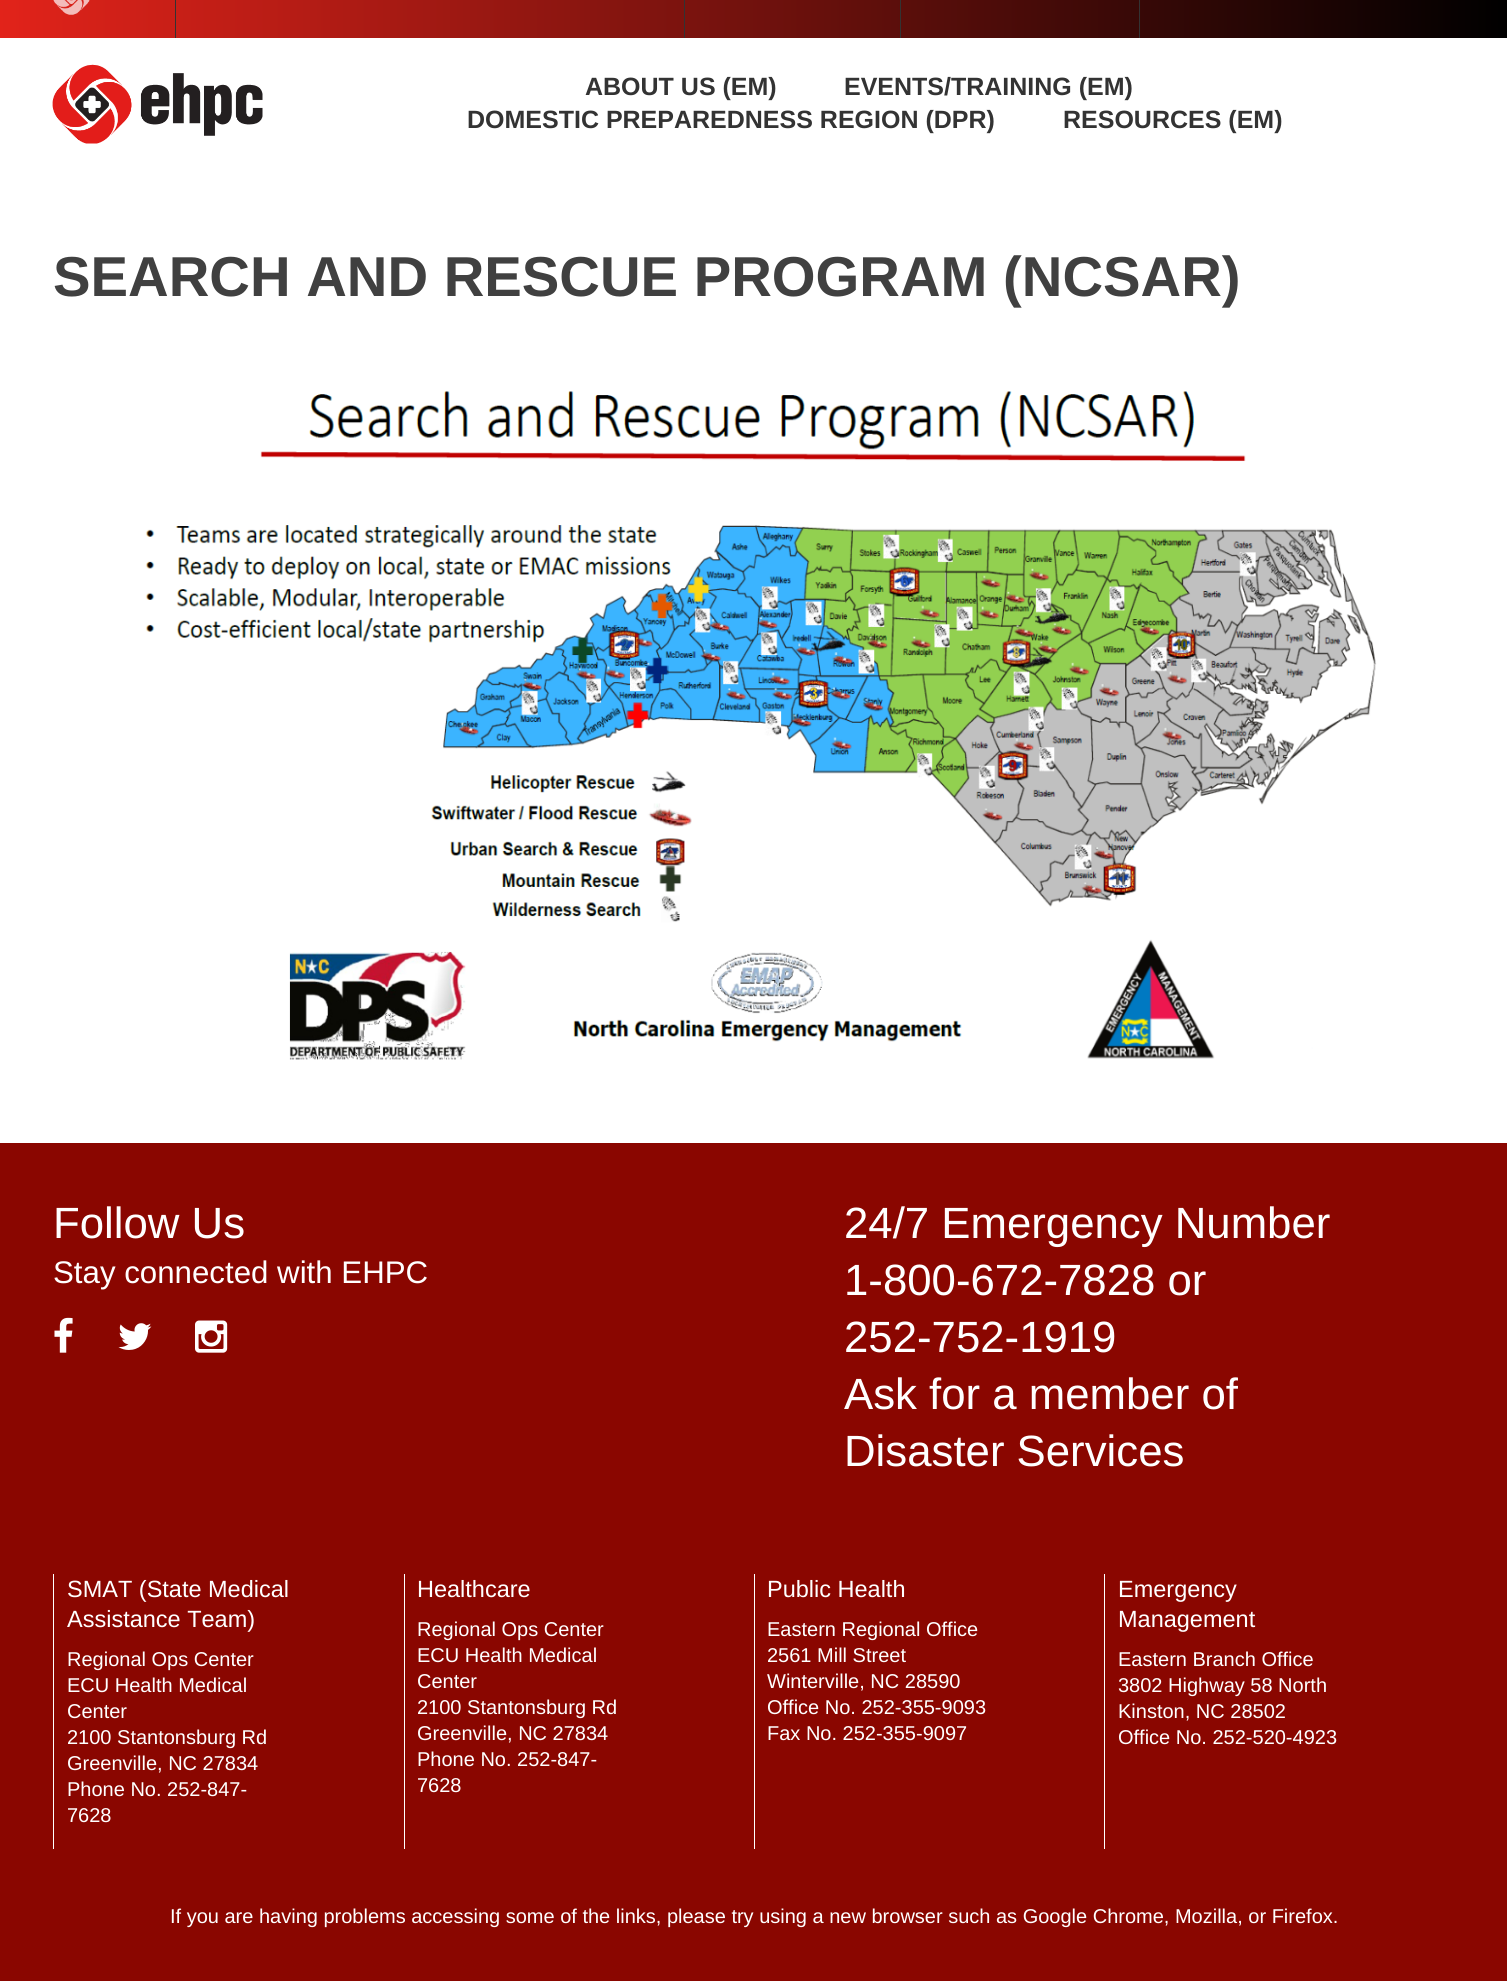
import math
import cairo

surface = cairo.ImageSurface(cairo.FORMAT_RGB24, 1507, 1981)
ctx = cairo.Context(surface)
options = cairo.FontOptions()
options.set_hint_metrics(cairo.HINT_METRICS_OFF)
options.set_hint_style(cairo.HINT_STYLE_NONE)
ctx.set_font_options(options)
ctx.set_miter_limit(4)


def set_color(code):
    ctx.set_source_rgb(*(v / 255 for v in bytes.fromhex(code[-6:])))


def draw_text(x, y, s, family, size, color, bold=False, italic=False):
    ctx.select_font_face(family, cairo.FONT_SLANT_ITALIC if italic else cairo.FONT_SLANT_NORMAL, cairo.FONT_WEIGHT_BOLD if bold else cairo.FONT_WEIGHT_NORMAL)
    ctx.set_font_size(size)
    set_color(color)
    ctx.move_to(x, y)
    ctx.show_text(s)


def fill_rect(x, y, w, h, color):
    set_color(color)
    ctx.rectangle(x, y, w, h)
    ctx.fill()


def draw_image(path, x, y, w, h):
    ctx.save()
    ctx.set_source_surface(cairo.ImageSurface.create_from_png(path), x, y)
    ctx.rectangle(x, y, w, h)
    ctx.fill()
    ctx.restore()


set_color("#ffffff")
ctx.paint()
gradient = cairo.LinearGradient(0, -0.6, 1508, -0.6)
gradient.add_color_stop_rgba(0, 0.886, 0.137, 0.102, 1)
gradient.add_color_stop_rgba(1, 0, 0, 0, 1)
ctx.set_source(gradient)
ctx.rectangle(0, 0, 1507, 38)
ctx.fill()
draw_image("assets/img1.png", 53, 0, 37, 15)
fill_rect(175, 0, 1, 38, "#333333")
fill_rect(684, 0, 1, 38, "#333333")
fill_rect(900, 0, 1, 38, "#333333")
fill_rect(1139, 0, 1, 38, "#333333")
draw_image("assets/img2.png", 52, 64, 211, 80)
draw_text(585, 95, "ABOUT US (EM)", "Liberation Sans", 25, "#333333", bold=True)
draw_text(844, 95, "EVENTS/TRAINING (EM)", "Liberation Sans", 25, "#333333", bold=True)
draw_text(467, 128, "DOMESTIC PREPAREDNESS REGION (DPR)", "Liberation Sans", 25, "#333333", bold=True)
draw_text(1063, 128, "RESOURCES (EM)", "Liberation Sans", 25, "#333333", bold=True)
draw_text(53, 296, "SEARCH AND RESCUE PROGRAM (NCSAR)", "Liberation Sans", 56.25, "#404040", bold=True)
draw_image("assets/img3.png", 145, 391, 1232, 669)
fill_rect(0, 1143, 1507, 838, "#8a0600")
draw_text(53, 1238, "Follow Us", "Liberation Sans", 43.75, "#ffffff")
draw_text(53, 1283, "Stay connected with EHPC", "Liberation Sans", 31.25, "#ffffff")
draw_image("assets/img4.png", 54, 1317, 19, 36)
draw_image("assets/img5.png", 118, 1323, 34, 27)
draw_image("assets/img6.png", 195, 1320, 33, 33)
draw_text(844, 1238, "24/7 Emergency Number", "Liberation Sans", 43.75, "#ffffff")
draw_text(844, 1295, "1-800-672-7828 or", "Liberation Sans", 43.75, "#ffffff")
draw_text(844, 1352, "252-752-1919", "Liberation Sans", 43.75, "#ffffff")
draw_text(844, 1409, "Ask for a member of", "Liberation Sans", 43.75, "#ffffff")
draw_text(844, 1466, "Disaster Services", "Liberation Sans", 43.75, "#ffffff")
fill_rect(53, 1574, 1, 275, "#ffffff")
draw_text(67, 1597, "SMAT (State Medical", "Liberation Sans", 23.5, "#ffffff")
draw_text(67, 1627, "Assistance Team)", "Liberation Sans", 23.5, "#ffffff")
draw_text(67, 1666, "Regional Ops Center", "Liberation Sans", 20, "#ffffff")
draw_text(67, 1692, "ECU Health Medical", "Liberation Sans", 20, "#ffffff")
draw_text(67, 1718, "Center", "Liberation Sans", 20, "#ffffff")
draw_text(67, 1744, "2100 Stantonsburg Rd", "Liberation Sans", 20, "#ffffff")
draw_text(67, 1770, "Greenville, NC 27834", "Liberation Sans", 20, "#ffffff")
draw_text(67, 1796, "Phone No. 252-847-", "Liberation Sans", 20, "#ffffff")
draw_text(67, 1822, "7628", "Liberation Sans", 20, "#ffffff")
fill_rect(404, 1574, 1, 275, "#ffffff")
draw_text(417, 1597, "Healthcare", "Liberation Sans", 23.5, "#ffffff")
draw_text(417, 1636, "Regional Ops Center", "Liberation Sans", 20, "#ffffff")
draw_text(417, 1662, "ECU Health Medical", "Liberation Sans", 20, "#ffffff")
draw_text(417, 1688, "Center", "Liberation Sans", 20, "#ffffff")
draw_text(417, 1714, "2100 Stantonsburg Rd", "Liberation Sans", 20, "#ffffff")
draw_text(417, 1740, "Greenville, NC 27834", "Liberation Sans", 20, "#ffffff")
draw_text(417, 1766, "Phone No. 252-847-", "Liberation Sans", 20, "#ffffff")
draw_text(417, 1792, "7628", "Liberation Sans", 20, "#ffffff")
fill_rect(754, 1574, 1, 275, "#ffffff")
draw_text(767, 1597, "Public Health", "Liberation Sans", 23.5, "#ffffff")
draw_text(767, 1636, "Eastern Regional Office", "Liberation Sans", 20, "#ffffff")
draw_text(767, 1662, "2561 Mill Street", "Liberation Sans", 20, "#ffffff")
draw_text(767, 1688, "Winterville, NC 28590", "Liberation Sans", 20, "#ffffff")
draw_text(767, 1714, "Office No. 252-355-9093", "Liberation Sans", 20, "#ffffff")
draw_text(767, 1740, "Fax No. 252-355-9097", "Liberation Sans", 20, "#ffffff")
fill_rect(1104, 1574, 1, 275, "#ffffff")
draw_text(1118, 1597, "Emergency", "Liberation Sans", 23.5, "#ffffff")
draw_text(1118, 1627, "Management", "Liberation Sans", 23.5, "#ffffff")
draw_text(1118, 1666, "Eastern Branch Office", "Liberation Sans", 20, "#ffffff")
draw_text(1118, 1692, "3802 Highway 58 North", "Liberation Sans", 20, "#ffffff")
draw_text(1118, 1718, "Kinston, NC 28502", "Liberation Sans", 20, "#ffffff")
draw_text(1118, 1744, "Office No. 252-520-4923", "Liberation Sans", 20, "#ffffff")
draw_text(170, 1923, "If you are having problems accessing some of the links, please try using a new browser such as Google Chrome, Mozilla, or Firefox.", "Liberation Sans", 20, "#ffffff")
surface.write_to_png("output.png")
